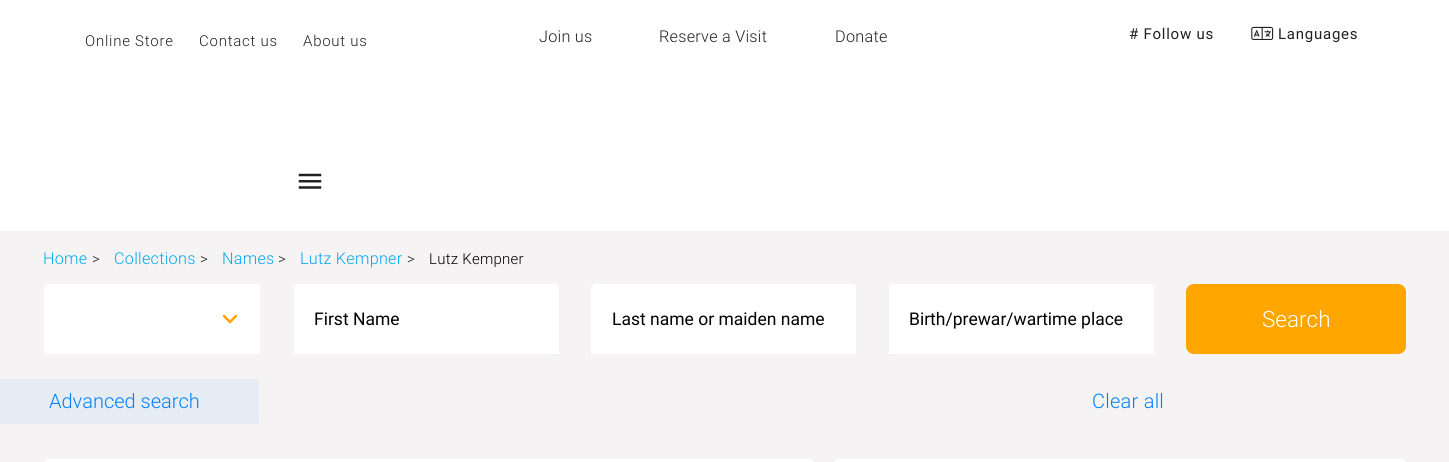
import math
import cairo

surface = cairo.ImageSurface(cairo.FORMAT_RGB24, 1449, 462)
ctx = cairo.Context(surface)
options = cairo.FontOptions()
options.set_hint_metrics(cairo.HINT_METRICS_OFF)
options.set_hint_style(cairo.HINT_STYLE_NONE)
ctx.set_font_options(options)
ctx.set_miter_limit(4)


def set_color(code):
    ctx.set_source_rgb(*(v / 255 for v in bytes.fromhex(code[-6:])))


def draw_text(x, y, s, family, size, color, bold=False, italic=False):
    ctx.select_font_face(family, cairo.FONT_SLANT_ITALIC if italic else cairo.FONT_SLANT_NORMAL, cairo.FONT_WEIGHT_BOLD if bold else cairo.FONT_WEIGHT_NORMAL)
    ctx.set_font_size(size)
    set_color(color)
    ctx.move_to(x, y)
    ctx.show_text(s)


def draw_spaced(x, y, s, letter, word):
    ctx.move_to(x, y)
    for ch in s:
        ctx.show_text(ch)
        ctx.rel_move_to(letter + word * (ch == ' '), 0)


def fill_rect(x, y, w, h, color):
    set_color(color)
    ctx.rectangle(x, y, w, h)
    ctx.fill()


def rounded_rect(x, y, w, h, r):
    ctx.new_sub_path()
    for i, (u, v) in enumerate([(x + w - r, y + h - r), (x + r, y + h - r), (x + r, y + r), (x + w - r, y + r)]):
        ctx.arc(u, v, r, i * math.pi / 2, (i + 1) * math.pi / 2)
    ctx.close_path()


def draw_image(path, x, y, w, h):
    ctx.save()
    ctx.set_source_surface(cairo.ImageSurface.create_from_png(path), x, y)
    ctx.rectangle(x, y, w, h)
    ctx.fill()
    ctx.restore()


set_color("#f5f3f3")
ctx.paint()
fill_rect(0, 0, 1449, 231, "#ffffff")
ctx.select_font_face("Roboto Light")
ctx.set_font_size(15)
set_color("#212121")
draw_spaced(85, 46, "Online Store", 0.75, 0)
draw_spaced(199, 46, "Contact us", 0.75, 0)
draw_spaced(303, 46, "About us", 0.75, 0)
ctx.set_font_size(16.25)
draw_spaced(539, 42, "Join us", 0.25, 0)
draw_spaced(659, 42, "Reserve a Visit", 0.25, 0)
draw_spaced(835, 42, "Donate", 0.25, 0)
ctx.select_font_face("Roboto")
ctx.set_font_size(15)
draw_spaced(1129, 39, "# Follow us", 0.75, 0)
draw_image("assets/img1.png", 1251, 26, 23, 14)
draw_spaced(1278, 39, "Languages", 0.75, 0)
draw_image("assets/img2.png", 298, 173, 24, 16)
ctx.select_font_face("Roboto Light")
ctx.set_font_size(16.25)
set_color("#02a7f0")
draw_spaced(43, 264, "Home", 0.25, 0)
ctx.select_font_face("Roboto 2 Light")
ctx.set_font_size(15)
set_color("#212121")
draw_spaced(92, 264, ">", 0.25, 0)
ctx.select_font_face("Roboto Light")
ctx.set_font_size(16.25)
set_color("#02a7f0")
draw_spaced(114, 264, "Collections", 0.25, 0)
ctx.select_font_face("Roboto 2 Light")
ctx.set_font_size(15)
set_color("#212121")
draw_spaced(200, 264, ">", 0.25, 0)
ctx.select_font_face("Roboto Light")
ctx.set_font_size(16.25)
set_color("#02a7f0")
draw_spaced(222, 264, "Names", 0.25, 0)
ctx.select_font_face("Roboto 2 Light")
ctx.set_font_size(15)
set_color("#212121")
draw_spaced(278, 264, ">", 0.25, 0)
ctx.select_font_face("Roboto Light")
ctx.set_font_size(16.25)
set_color("#02a7f0")
draw_spaced(300, 264, "Lutz Kempner", 0.25, 0)
ctx.select_font_face("Roboto 2 Light")
ctx.set_font_size(15)
set_color("#212121")
draw_spaced(407, 264, ">", 0.25, 0)
set_color("#000000")
draw_spaced(429, 264, "Lutz Kempner", 0.25, 0)
set_color("#ffffff")
ctx.new_path()
ctx.move_to(49, 284)
ctx.line_to(260, 284)
ctx.line_to(260, 354)
ctx.line_to(49, 354)
ctx.curve_to(46, 354, 44, 352, 44, 349)
ctx.line_to(44, 289)
ctx.curve_to(44, 286, 46, 284, 49, 284)
ctx.close_path()
ctx.fill()
draw_image("assets/img3.png", 222, 314, 16, 10)
ctx.new_path()
ctx.move_to(299, 284)
ctx.line_to(554, 284)
ctx.curve_to(557, 284, 559, 286, 559, 289)
ctx.line_to(559, 354)
ctx.line_to(294, 354)
ctx.line_to(294, 289)
ctx.curve_to(294, 286, 296, 284, 299, 284)
ctx.close_path()
ctx.fill()
draw_text(314, 325, "First Name", "Roboto", 17.5, "#000000")
set_color("#ffffff")
ctx.new_path()
ctx.move_to(596, 284)
ctx.line_to(851, 284)
ctx.curve_to(854, 284, 856, 286, 856, 289)
ctx.line_to(856, 354)
ctx.line_to(591, 354)
ctx.line_to(591, 289)
ctx.curve_to(591, 286, 593, 284, 596, 284)
ctx.close_path()
ctx.fill()
draw_text(612, 325, "Last name or maiden name", "Roboto", 17.5, "#000000")
set_color("#ffffff")
ctx.new_path()
ctx.move_to(894, 284)
ctx.line_to(1149, 284)
ctx.curve_to(1152, 284, 1154, 286, 1154, 289)
ctx.line_to(1154, 354)
ctx.line_to(889, 354)
ctx.line_to(889, 289)
ctx.curve_to(889, 286, 891, 284, 894, 284)
ctx.close_path()
ctx.fill()
draw_text(909, 325, "Birth/prewar/wartime place", "Roboto", 17.5, "#000000")
set_color("#ffa500")
rounded_rect(1186, 284, 220, 70, 8)
ctx.fill()
draw_text(1262, 327, "Search", "Roboto Light", 22.5, "#ffffff")
set_color("#e6ecf4")
ctx.new_path()
ctx.move_to(0, 379)
ctx.line_to(256.5, 379)
ctx.curve_to(258, 379, 259, 380, 259, 381.5)
ctx.line_to(259, 421.5)
ctx.curve_to(259, 423, 258, 424, 256.5, 424)
ctx.line_to(0, 424)
ctx.close_path()
ctx.fill()
draw_text(49, 408, "Advanced search", "Roboto Light", 20, "#0080ff")
draw_spaced(1092, 408, "Clear all", 0.25, 0)
set_color("#ffffff")
ctx.new_path()
ctx.move_to(49, 459)
ctx.line_to(809, 459)
ctx.curve_to(812, 459, 814, 461, 814, 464)
ctx.line_to(814, 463)
ctx.line_to(44, 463)
ctx.line_to(44, 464)
ctx.curve_to(44, 461, 46, 459, 49, 459)
ctx.close_path()
ctx.fill()
ctx.new_path()
ctx.move_to(839, 459)
ctx.line_to(1401, 459)
ctx.curve_to(1404, 459, 1406, 461, 1406, 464)
ctx.line_to(1406, 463)
ctx.line_to(834, 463)
ctx.line_to(834, 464)
ctx.curve_to(834, 461, 836, 459, 839, 459)
ctx.close_path()
ctx.fill()
surface.write_to_png("output.png")
